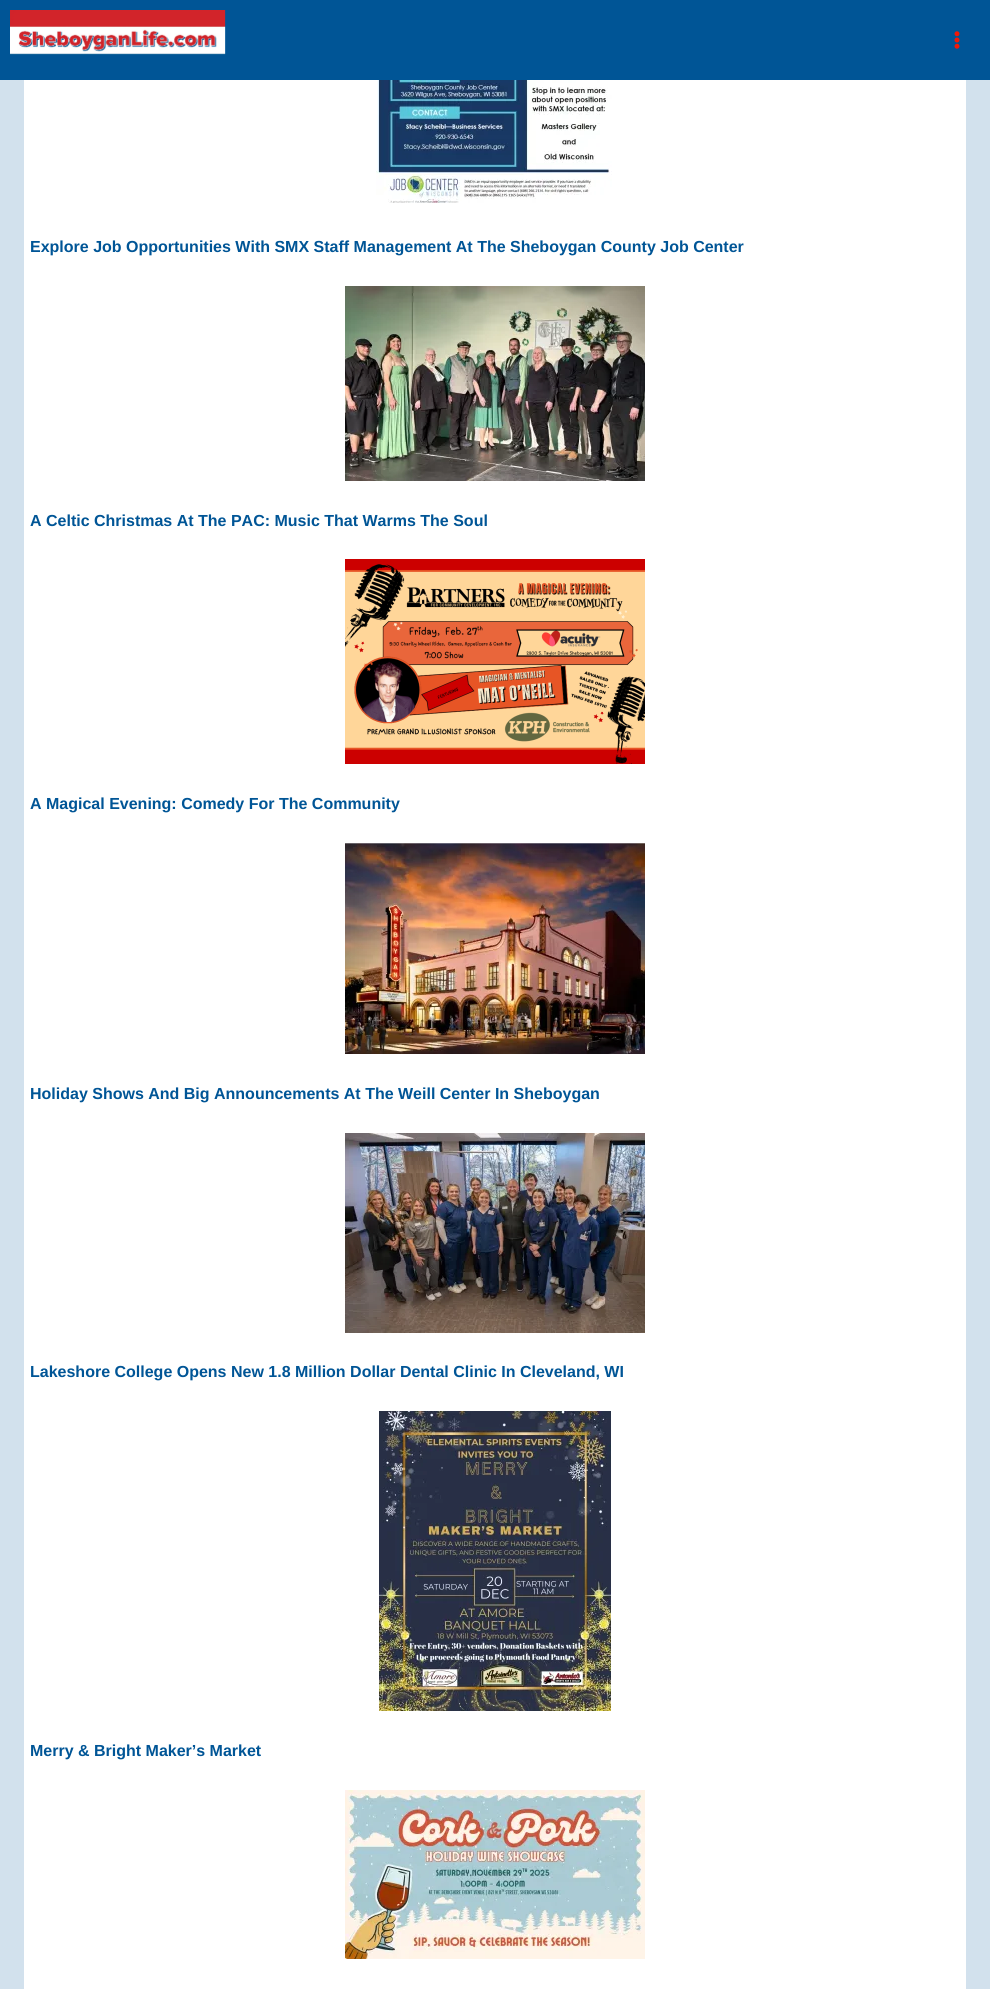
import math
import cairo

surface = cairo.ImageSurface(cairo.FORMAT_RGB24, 990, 1989)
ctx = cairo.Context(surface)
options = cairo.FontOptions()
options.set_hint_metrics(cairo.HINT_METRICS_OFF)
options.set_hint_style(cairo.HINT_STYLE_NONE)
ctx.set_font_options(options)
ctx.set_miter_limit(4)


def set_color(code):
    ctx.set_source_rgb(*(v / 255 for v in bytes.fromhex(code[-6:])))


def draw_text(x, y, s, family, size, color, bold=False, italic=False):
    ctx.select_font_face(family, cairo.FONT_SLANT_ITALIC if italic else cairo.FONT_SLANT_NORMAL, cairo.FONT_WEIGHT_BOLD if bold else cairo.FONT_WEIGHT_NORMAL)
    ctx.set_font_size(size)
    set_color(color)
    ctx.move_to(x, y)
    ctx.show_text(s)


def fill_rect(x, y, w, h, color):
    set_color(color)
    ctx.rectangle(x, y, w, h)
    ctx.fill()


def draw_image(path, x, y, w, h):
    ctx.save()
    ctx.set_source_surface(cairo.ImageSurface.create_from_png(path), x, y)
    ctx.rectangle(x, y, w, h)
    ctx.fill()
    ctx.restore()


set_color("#d2e1ed")
ctx.paint()
fill_rect(0, 0, 990, 80, "#005596")
draw_image("assets/img1.png", 10, 10, 216, 45)
draw_image("assets/img2.png", 954, 31, 6, 18)
fill_rect(24, 80, 942, 1909, "#ffffff")
draw_image("assets/img3.png", 376, 80, 236, 123)
draw_text(30, 252, "Explore Job Opportunities With SMX Staff Management At The Sheboygan County Job Center", "Liberation Sans", 16, "#005596", bold=True)
draw_image("assets/img4.png", 345, 286, 300, 195)
draw_text(30, 526, "A Celtic Christmas At The PAC: Music That Warms The Soul", "Liberation Sans", 16, "#005596", bold=True)
draw_image("assets/img5.png", 345, 559, 300, 205)
draw_text(30, 809, "A Magical Evening: Comedy For The Community", "Liberation Sans", 16, "#005596", bold=True)
draw_image("assets/img6.png", 345, 843, 300, 211)
draw_text(30, 1099, "Holiday Shows And Big Announcements At The Weill Center In Sheboygan", "Liberation Sans", 16, "#005596", bold=True)
draw_image("assets/img7.png", 345, 1133, 300, 200)
draw_text(30, 1377, "Lakeshore College Opens New 1.8 Million Dollar Dental Clinic In Cleveland, WI", "Liberation Sans", 16, "#005596", bold=True)
draw_image("assets/img8.png", 379, 1411, 232, 300)
draw_text(30, 1756, "Merry & Bright Maker’s Market", "Liberation Sans", 16, "#005596", bold=True)
draw_image("assets/img9.png", 345, 1790, 300, 169)
surface.write_to_png("output.png")
